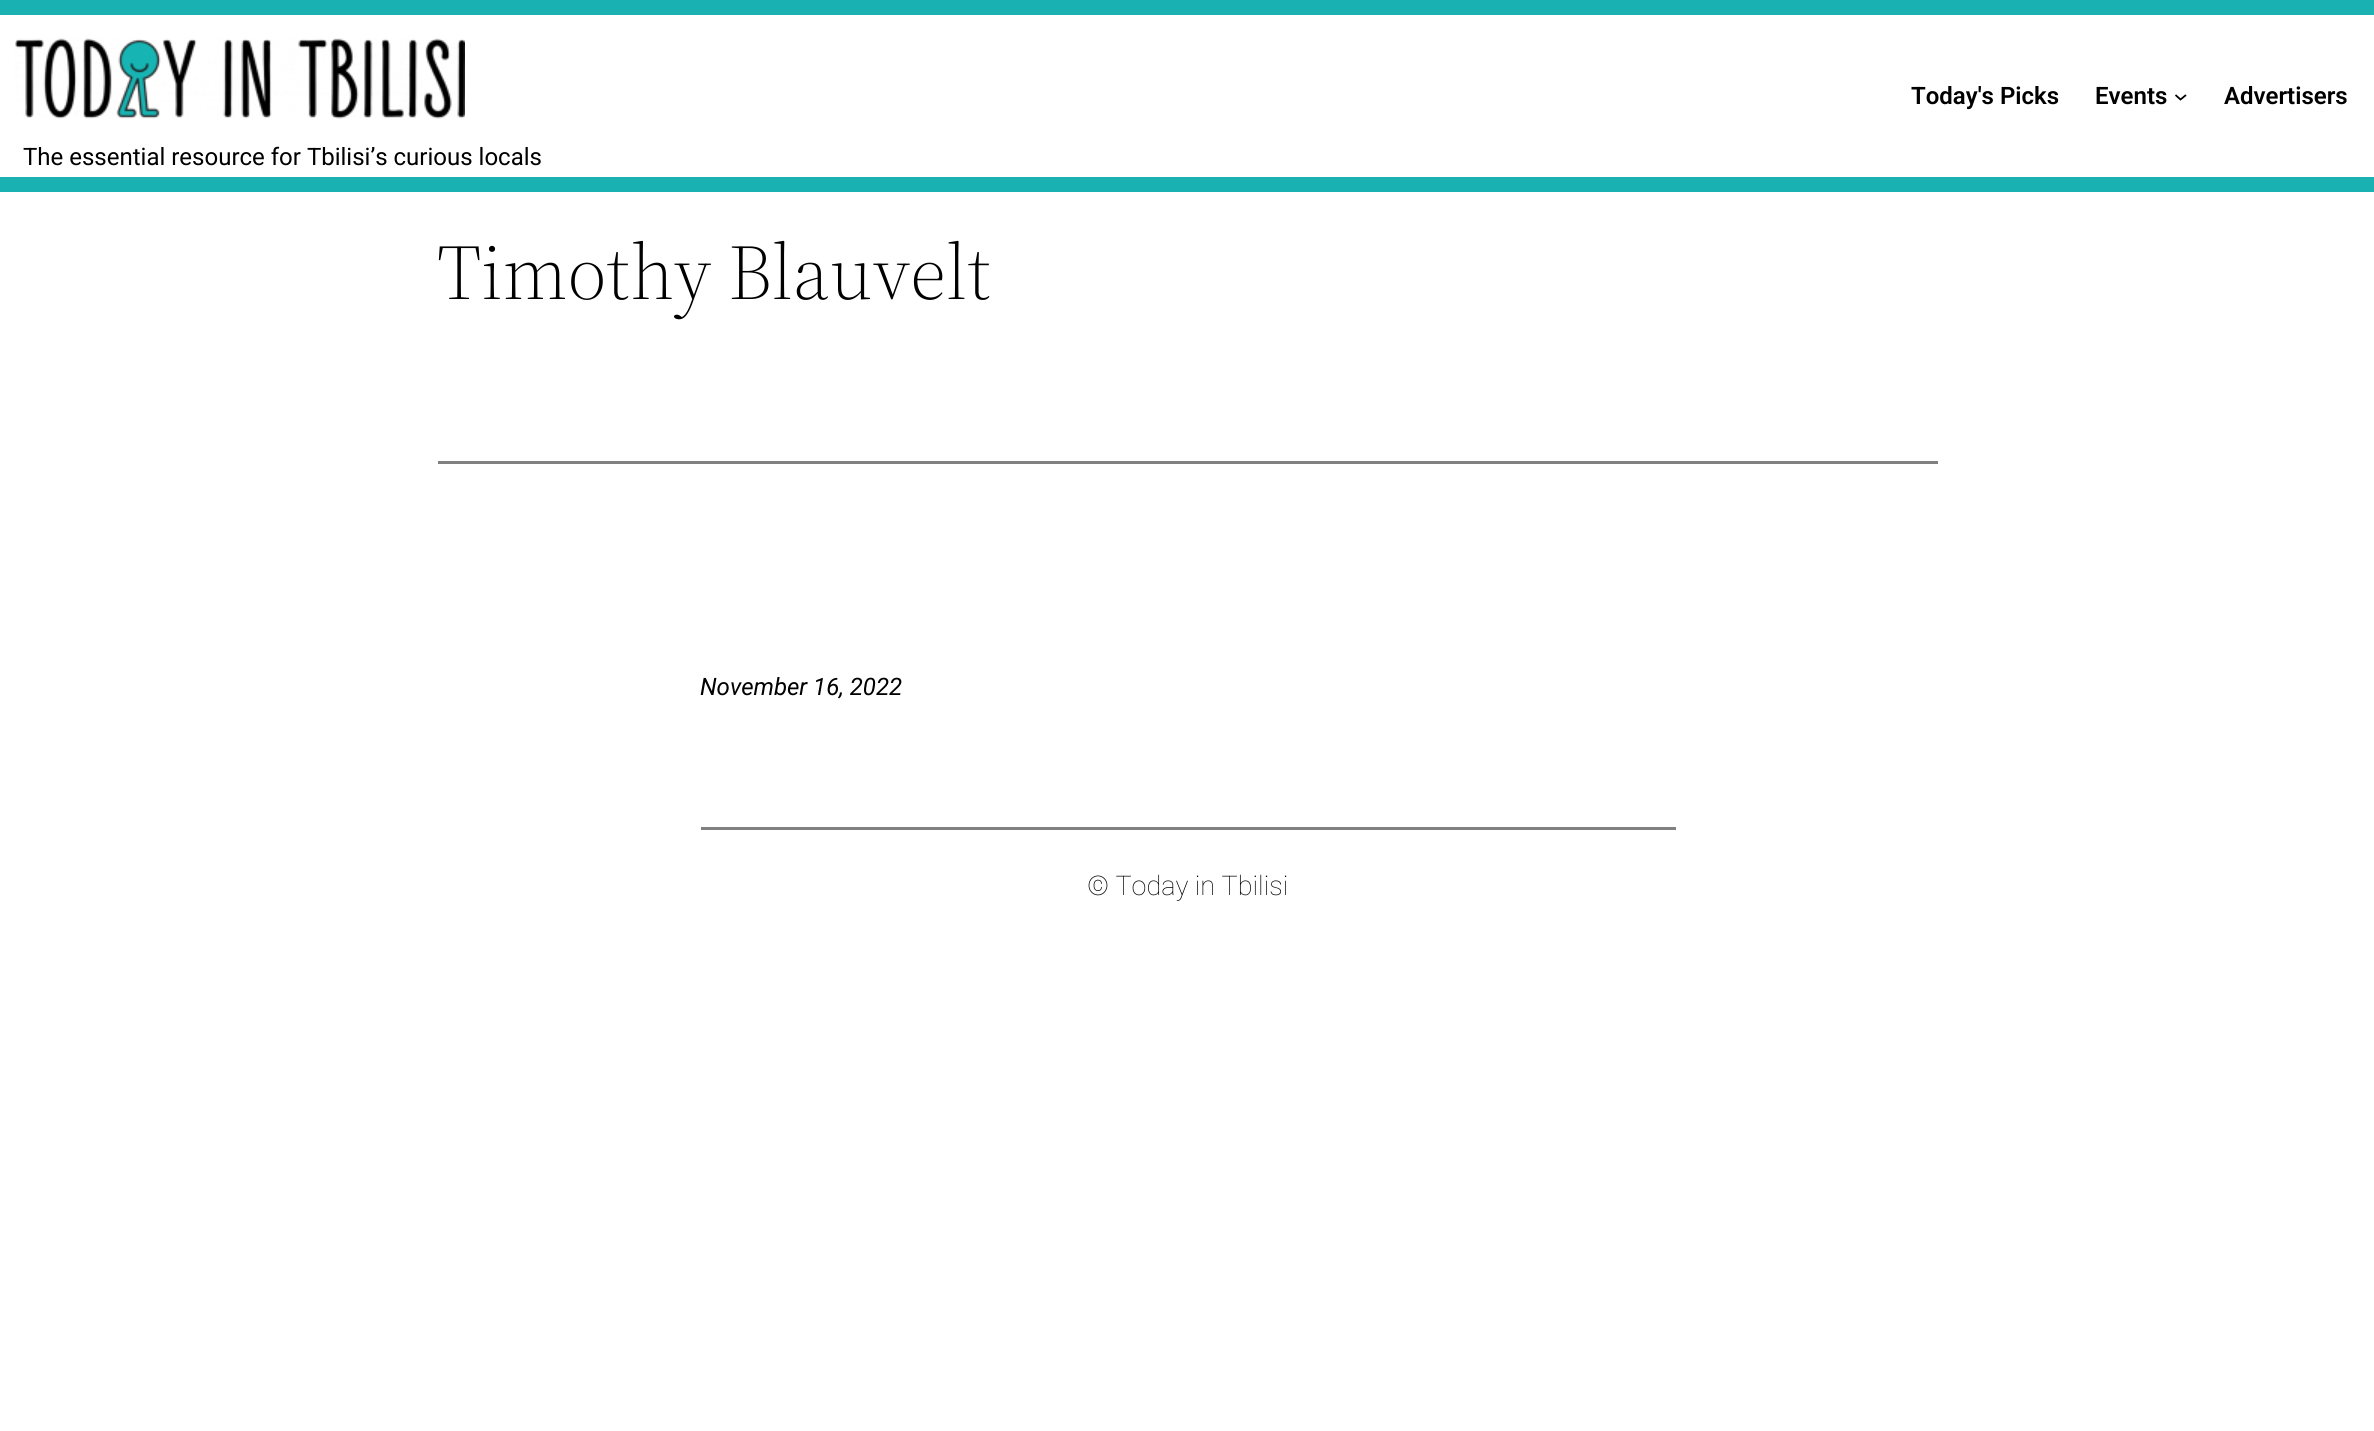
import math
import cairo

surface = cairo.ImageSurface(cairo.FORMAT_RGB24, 2374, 1431)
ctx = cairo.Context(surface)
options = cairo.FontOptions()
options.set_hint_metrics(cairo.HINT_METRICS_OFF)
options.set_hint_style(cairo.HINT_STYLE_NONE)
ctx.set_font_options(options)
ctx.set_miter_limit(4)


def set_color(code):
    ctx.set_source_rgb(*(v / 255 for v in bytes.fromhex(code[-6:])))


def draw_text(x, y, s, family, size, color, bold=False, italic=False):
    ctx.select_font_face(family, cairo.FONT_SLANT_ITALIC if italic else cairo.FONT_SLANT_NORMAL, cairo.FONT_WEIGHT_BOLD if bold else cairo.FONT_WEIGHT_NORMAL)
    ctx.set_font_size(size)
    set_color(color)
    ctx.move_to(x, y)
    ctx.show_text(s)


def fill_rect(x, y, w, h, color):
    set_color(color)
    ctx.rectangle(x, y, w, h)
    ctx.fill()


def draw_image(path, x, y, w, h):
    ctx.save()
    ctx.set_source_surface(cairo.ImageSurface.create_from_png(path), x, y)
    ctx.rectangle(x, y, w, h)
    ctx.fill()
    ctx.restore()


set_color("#ffffff")
ctx.paint()
ctx.rectangle(-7.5, 7.5, 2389, 177)
set_color("#19b1b1")
ctx.set_line_width(15)
ctx.stroke()
draw_text(1911, 104, "Today's Picks", "Roboto SemiBold", 24, "#000000")
draw_text(2095, 104, "Events", "Roboto SemiBold", 24, "#000000")
ctx.new_path()
ctx.move_to(2175.5, 95)
ctx.line_to(2180.5, 99.5)
ctx.line_to(2186, 95)
ctx.set_line_width(1.8)
ctx.stroke()
draw_text(2224, 104, "Advertisers", "Roboto SemiBold", 24, "#000000")
draw_image("assets/img1.png", 15, 38, 450, 81)
draw_text(23, 165, "The essential resource for Tbilisi’s curious locals", "Roboto", 24, "#000000")
draw_text(437, 299, "Timothy Blauvelt", "Source Serif 4 Light", 78, "#000000")
fill_rect(438, 461, 1500, 3, "#808080")
draw_text(700, 695, "November 16, 2022", "Roboto", 24, "#000000", italic=True)
fill_rect(701, 827, 975, 3, "#808080")
draw_text(1087, 895, "© Today in Tbilisi", "Roboto Thin", 27, "#000000")
surface.write_to_png("output.png")
